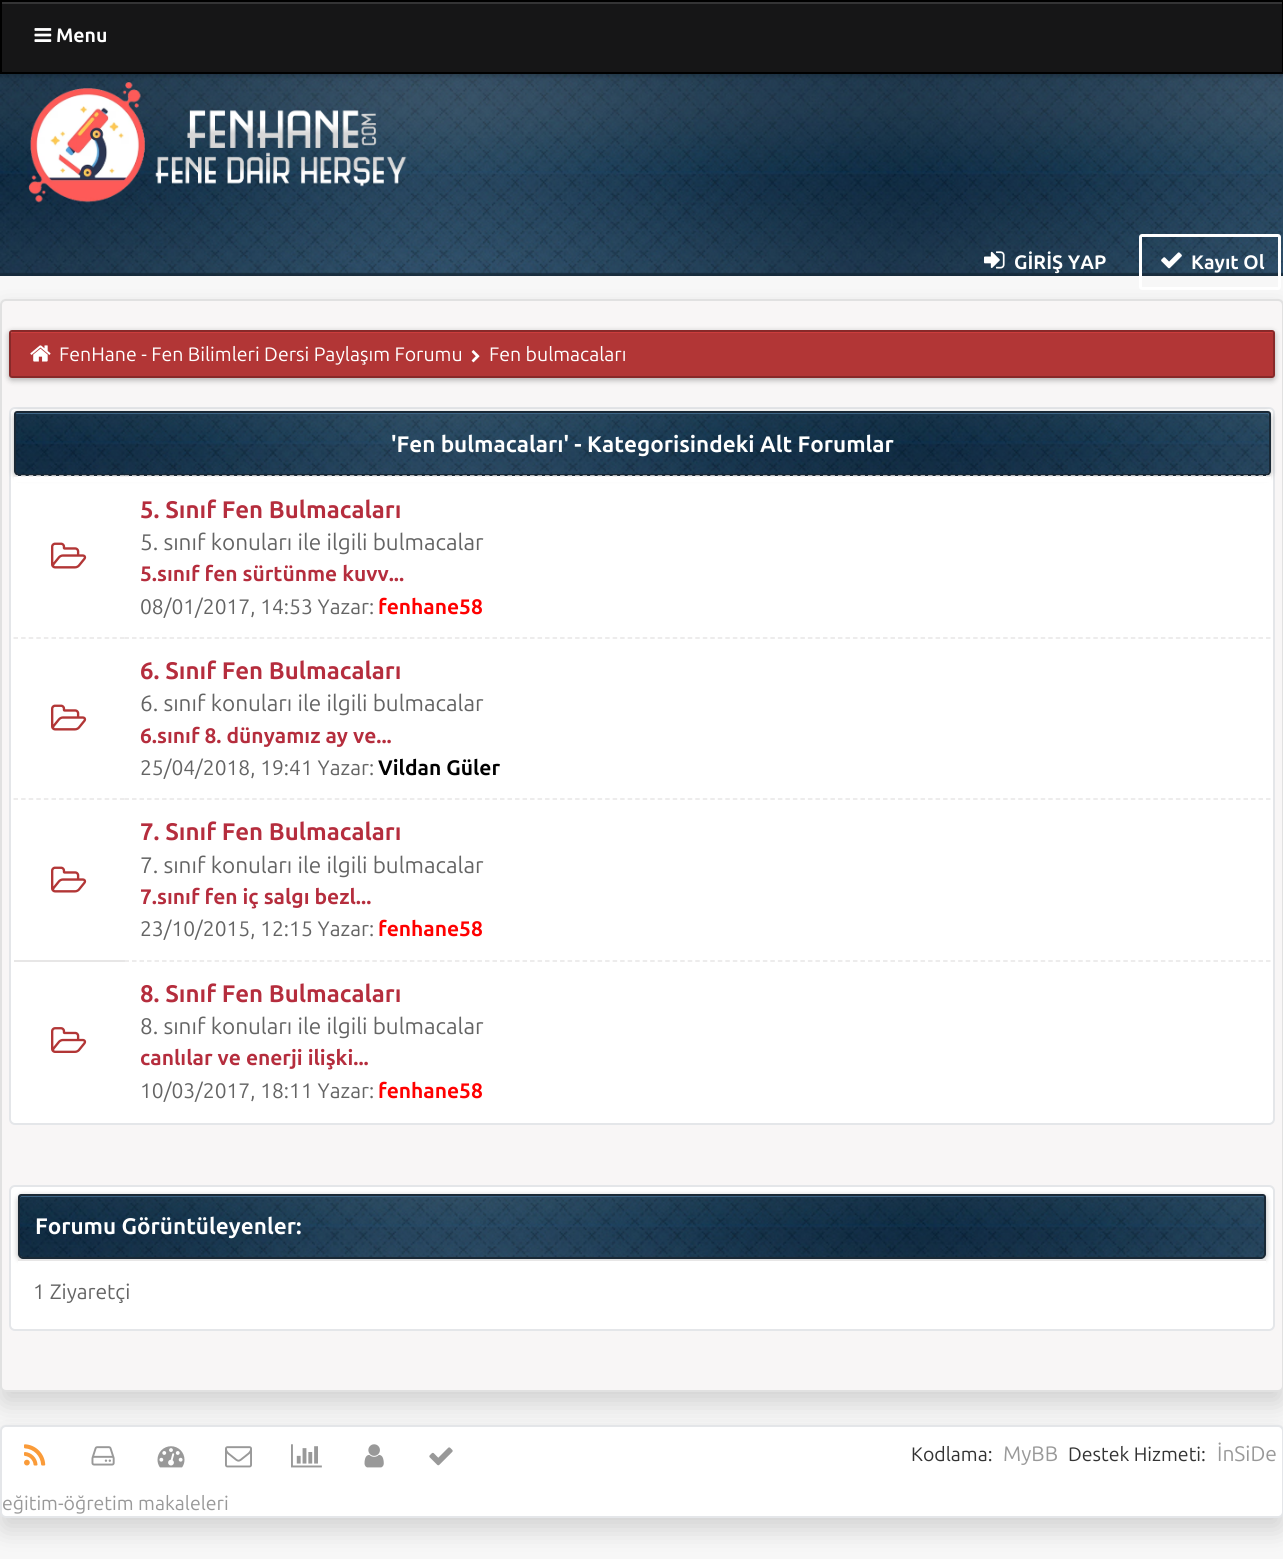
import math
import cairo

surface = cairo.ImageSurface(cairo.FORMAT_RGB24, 1283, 1559)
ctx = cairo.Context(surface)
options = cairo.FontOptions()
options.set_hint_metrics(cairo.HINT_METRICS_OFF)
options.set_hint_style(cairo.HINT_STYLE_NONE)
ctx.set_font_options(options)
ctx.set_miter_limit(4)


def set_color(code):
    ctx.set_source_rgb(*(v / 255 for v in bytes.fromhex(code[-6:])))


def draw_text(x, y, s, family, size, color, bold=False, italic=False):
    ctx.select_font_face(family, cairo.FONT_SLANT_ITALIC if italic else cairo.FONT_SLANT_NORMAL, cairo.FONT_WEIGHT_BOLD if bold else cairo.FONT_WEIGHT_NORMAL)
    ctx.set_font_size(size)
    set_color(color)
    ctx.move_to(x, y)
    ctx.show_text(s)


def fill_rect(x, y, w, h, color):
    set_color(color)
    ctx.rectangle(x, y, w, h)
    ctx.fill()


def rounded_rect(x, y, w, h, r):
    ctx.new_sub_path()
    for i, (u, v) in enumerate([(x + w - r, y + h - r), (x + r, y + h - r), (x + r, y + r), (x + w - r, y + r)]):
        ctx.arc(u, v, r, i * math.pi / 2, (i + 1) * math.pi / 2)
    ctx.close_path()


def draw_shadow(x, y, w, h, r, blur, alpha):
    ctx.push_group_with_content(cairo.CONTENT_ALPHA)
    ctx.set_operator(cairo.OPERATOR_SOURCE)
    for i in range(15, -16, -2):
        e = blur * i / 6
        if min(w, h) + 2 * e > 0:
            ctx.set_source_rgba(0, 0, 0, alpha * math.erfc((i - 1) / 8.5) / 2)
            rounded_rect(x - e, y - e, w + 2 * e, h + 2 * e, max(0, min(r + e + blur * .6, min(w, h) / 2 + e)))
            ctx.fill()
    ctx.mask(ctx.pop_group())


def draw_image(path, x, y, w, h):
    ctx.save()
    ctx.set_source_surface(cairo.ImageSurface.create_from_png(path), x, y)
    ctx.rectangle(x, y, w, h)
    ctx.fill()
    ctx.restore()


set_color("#f7f7f7")
ctx.paint()
draw_image("assets/img1.png", 0, 74, 1283, 202)
draw_image("assets/img3.png", 28, 82, 379, 121)
set_color("#000000")
draw_shadow(0, 2, 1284, 73, 0, 3, 0.3)
fill_rect(2, 4, 1280, 68, "#161617")
fill_rect(2, 2, 1281, 2, "#343435")
ctx.rectangle(1, 1, 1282, 72)
set_color("#000000")
ctx.stroke()
draw_image("assets/img2.png", 34, 28, 18, 14)
draw_text(56, 42, "Menu", "Ubuntu", 19.5, "#ffffff", bold=True)
draw_image("assets/img4.png", 984, 251, 21, 18)
draw_text(1014, 269, "GİRİŞ YAP", "Ubuntu", 19.5, "#ffffff", bold=True)
rounded_rect(1140.5, 235.5, 139, 53, 1.5)
ctx.set_line_width(3)
ctx.stroke()
draw_image("assets/img5.png", 1161, 252, 21, 17)
draw_text(1191, 269, "Kayıt Ol", "Ubuntu", 19.5, "#ffffff", bold=True)
set_color("#000000")
draw_shadow(0, 1437, 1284, 93, 6, 12, 0.15)
set_color("#ffffff")
rounded_rect(1, 1426, 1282, 91, 5)
ctx.fill_preserve()
set_color("#e4e6e9")
ctx.set_line_width(2)
ctx.stroke()
set_color("#000000")
draw_shadow(0, 311, 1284, 1093, 6, 12, 0.15)
set_color("#f8f6f6")
rounded_rect(1, 300, 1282, 1091, 5)
ctx.fill_preserve()
set_color("#e1e1e1")
ctx.stroke()
set_color("#000000")
draw_shadow(9, 332, 1266, 48, 3, 3, 0.3)
set_color("#b23636")
rounded_rect(11, 332, 1263, 45, 1.5)
ctx.fill()
set_color("#cc3d3d")
ctx.new_path()
ctx.move_to(12, 333)
ctx.line_to(1272, 333)
ctx.line_to(1274, 334)
ctx.curve_to(1274, 333, 1273, 332, 1272, 332)
ctx.line_to(12, 332)
ctx.curve_to(12, 332, 11, 333, 11, 333)
ctx.close_path()
ctx.fill()
rounded_rect(10, 331, 1264, 46, 2)
set_color("#882929")
ctx.stroke()
draw_image("assets/img6.png", 30, 345, 21, 17)
draw_text(59, 361, "FenHane - Fen Bilimleri Dersi Paylaşım Forumu", "Ubuntu", 19.5, "#ffffff")
draw_image("assets/img7.png", 471, 350, 9, 13)
draw_text(489, 361, "Fen bulmacaları", "Ubuntu", 19.5, "#ffffff")
rounded_rect(10, 408, 1264, 716, 5)
ctx.fill_preserve()
set_color("#e4e6e9")
ctx.stroke()
set_color("#000000")
draw_shadow(14, 413, 1257, 64, 5, 3, 0.3)
draw_image("assets/img8.png", 16, 413, 1253, 61)
set_color("#3d6485")
ctx.new_path()
ctx.move_to(16, 414)
ctx.line_to(1268, 414)
ctx.line_to(1269, 416)
ctx.line_to(1269, 414)
ctx.line_to(1268, 413)
ctx.line_to(16, 413)
ctx.line_to(15, 414)
ctx.line_to(15, 416)
ctx.close_path()
ctx.fill()
ctx.new_path()
ctx.move_to(17, 412)
ctx.line_to(1268, 412)
ctx.curve_to(1269, 412, 1270, 413, 1270, 414)
ctx.line_to(1270, 471)
ctx.curve_to(1270, 473, 1268, 475, 1266, 475)
ctx.line_to(19, 475)
ctx.curve_to(17, 475, 15, 473, 15, 471)
ctx.line_to(15, 414)
ctx.curve_to(15, 413, 16, 412, 17, 412)
ctx.close_path()
set_color("#1a2936")
ctx.stroke()
draw_text(391, 452, "'Fen bulmacaları' - Kategorisindeki Alt Forumlar", "Ubuntu", 22.5, "#ffffff", bold=True)
fill_rect(14, 476, 1257, 6, "#ffffff")
ctx.new_path()
ctx.move_to(13.5, 476)
ctx.line_to(124.5, 476)
set_color("#e7e6e6")
ctx.set_line_width(1.5)
ctx.set_dash([4.5, 3.1])
ctx.stroke()
draw_image("assets/img9.png", 51, 542, 36, 27)
ctx.new_path()
ctx.move_to(124.5, 476)
ctx.line_to(1270.5, 476)
ctx.set_dash([4.5, 3.01])
ctx.stroke()
draw_text(140, 518, "5. Sınıf Fen Bulmacaları", "Ubuntu", 24, "#b52d3d", bold=True)
draw_text(140, 550, "5. sınıf konuları ile ilgili bulmacalar", "Ubuntu", 22.5, "#646464")
draw_text(140, 581, "5.sınıf fen sürtünme kuvv...", "Ubuntu", 21, "#b52d3d", bold=True)
draw_text(140, 614, "08/01/2017, 14:53 Yazar:", "Ubuntu", 21, "#646464")
draw_text(378, 614, "fenhane58", "Ubuntu", 21, "#ff0000", bold=True)
ctx.new_path()
ctx.move_to(13.5, 638)
ctx.line_to(124.5, 638)
set_color("#e7e6e6")
ctx.set_dash([4.5, 3.1])
ctx.stroke()
draw_image("assets/img9.png", 51, 704, 36, 27)
ctx.new_path()
ctx.move_to(124.5, 638)
ctx.line_to(1270.5, 638)
ctx.set_dash([4.5, 3.01])
ctx.stroke()
draw_text(140, 679, "6. Sınıf Fen Bulmacaları", "Ubuntu", 24, "#b52d3d", bold=True)
draw_text(140, 711, "6. sınıf konuları ile ilgili bulmacalar", "Ubuntu", 22.5, "#646464")
draw_text(140, 743, "6.sınıf 8. dünyamız ay ve...", "Ubuntu", 21, "#b52d3d", bold=True)
draw_text(140, 775, "25/04/2018, 19:41 Yazar:", "Ubuntu", 21, "#646464")
draw_text(378, 775, "Vildan Güler", "Ubuntu", 21, "#000000", bold=True)
ctx.new_path()
ctx.move_to(13.5, 799)
ctx.line_to(124.5, 799)
set_color("#e7e6e6")
ctx.set_dash([4.5, 3.1])
ctx.stroke()
draw_image("assets/img9.png", 51, 866, 36, 27)
ctx.new_path()
ctx.move_to(124.5, 799)
ctx.line_to(1270.5, 799)
ctx.set_dash([4.5, 3.01])
ctx.stroke()
draw_text(140, 840, "7. Sınıf Fen Bulmacaları", "Ubuntu", 24, "#b52d3d", bold=True)
draw_text(140, 873, "7. sınıf konuları ile ilgili bulmacalar", "Ubuntu", 22.5, "#646464")
draw_text(140, 904, "7.sınıf fen iç salgı bezl...", "Ubuntu", 21, "#b52d3d", bold=True)
draw_text(140, 936, "23/10/2015, 12:15 Yazar:", "Ubuntu", 21, "#646464")
draw_text(378, 936, "fenhane58", "Ubuntu", 21, "#ff0000", bold=True)
fill_rect(14, 960, 111, 2, "#e7e6e6")
draw_image("assets/img10.png", 51, 1027, 36, 26)
ctx.new_path()
ctx.move_to(124.5, 961)
ctx.line_to(1270.5, 961)
ctx.stroke()
draw_text(140, 1002, "8. Sınıf Fen Bulmacaları", "Ubuntu", 24, "#b52d3d", bold=True)
draw_text(140, 1034, "8. sınıf konuları ile ilgili bulmacalar", "Ubuntu", 22.5, "#646464")
draw_text(140, 1065, "canlılar ve enerji ilişki...", "Ubuntu", 21, "#b52d3d", bold=True)
draw_text(140, 1098, "10/03/2017, 18:11 Yazar:", "Ubuntu", 21, "#646464")
draw_text(378, 1098, "fenhane58", "Ubuntu", 21, "#ff0000", bold=True)
set_color("#ffffff")
rounded_rect(10, 1186, 1264, 144, 5)
ctx.fill_preserve()
set_color("#e4e6e9")
ctx.set_line_width(2)
ctx.set_dash([])
ctx.stroke()
set_color("#000000")
draw_shadow(18, 1196, 1248, 64, 5, 3, 0.3)
draw_image("assets/img11.png", 20, 1196, 1244, 61)
set_color("#3d6485")
ctx.new_path()
ctx.move_to(21, 1197)
ctx.line_to(1263, 1197)
ctx.curve_to(1264, 1197, 1264, 1198, 1264, 1198)
ctx.line_to(1264, 1256)
ctx.curve_to(1265, 1256, 1265, 1255, 1265, 1254)
ctx.line_to(1265, 1198)
ctx.curve_to(1265, 1197, 1264, 1196, 1264, 1196)
ctx.line_to(22, 1196)
ctx.curve_to(21, 1196, 20, 1197, 20, 1198)
ctx.close_path()
ctx.fill()
ctx.new_path()
ctx.move_to(21, 1195)
ctx.line_to(1263, 1195)
ctx.curve_to(1264, 1195, 1265, 1196, 1265, 1197)
ctx.line_to(1265, 1254)
ctx.curve_to(1265, 1256, 1263, 1258, 1261, 1258)
ctx.line_to(23, 1258)
ctx.curve_to(21, 1258, 19, 1256, 19, 1254)
ctx.line_to(19, 1197)
ctx.curve_to(19, 1196, 20, 1195, 21, 1195)
ctx.close_path()
set_color("#1a2936")
ctx.stroke()
draw_text(35, 1234, "Forumu Görüntüleyenler:", "Ubuntu", 22.5, "#ffffff", bold=True)
ctx.new_path()
ctx.move_to(18, 1259)
ctx.line_to(1266, 1259)
ctx.line_to(1266, 1319)
ctx.curve_to(1266, 1320.5, 1264.5, 1322, 1263, 1322)
ctx.line_to(21, 1322)
ctx.curve_to(19.5, 1322, 18, 1320.5, 18, 1319)
ctx.close_path()
ctx.fill()
fill_rect(18, 1259, 1248, 2, "#e7e6e6")
draw_text(33, 1299, "1 Ziyaretçi", "Ubuntu", 21, "#646464")
draw_image("assets/img12.png", 24, 1444, 22, 22)
draw_image("assets/img13.png", 91, 1446, 24, 20)
draw_image("assets/img14.png", 157, 1446, 28, 22)
draw_image("assets/img15.png", 225, 1446, 27, 22)
draw_image("assets/img16.png", 291, 1444, 31, 24)
draw_image("assets/img17.png", 364, 1444, 20, 24)
draw_image("assets/img18.png", 429, 1447, 24, 19)
draw_text(911, 1461, "Kodlama:", "Ubuntu", 19.5, "#333333")
draw_text(1003, 1461, "MyBB", "Ubuntu", 21, "#999999")
draw_text(1068, 1461, "Destek Hizmeti:", "Ubuntu", 19.5, "#333333")
draw_text(1217, 1461, "İnSiDe", "Ubuntu", 21, "#999999")
draw_text(2, 1510, "eğitim-öğretim makaleleri", "Ubuntu", 19.5, "#999999")
surface.write_to_png("output.png")
